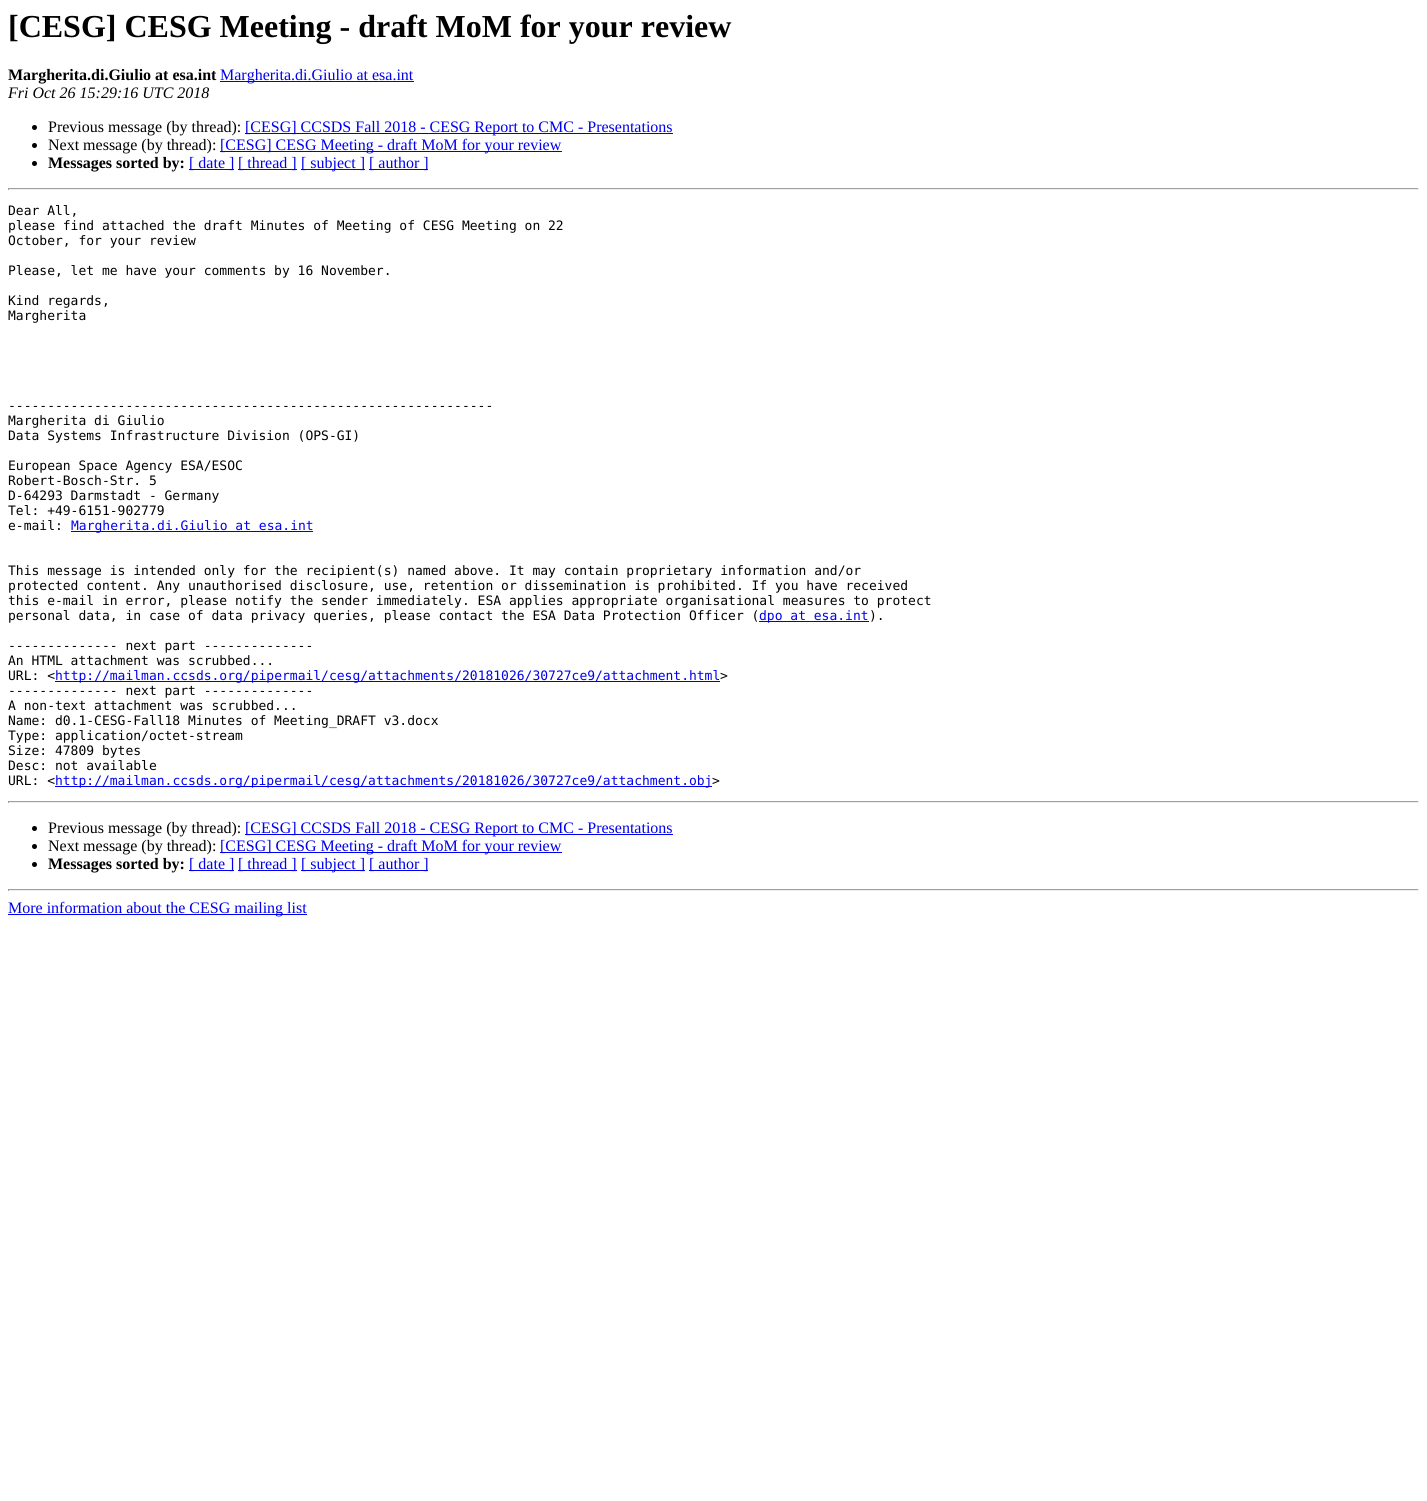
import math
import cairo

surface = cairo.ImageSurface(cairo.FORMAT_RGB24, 1427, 1501)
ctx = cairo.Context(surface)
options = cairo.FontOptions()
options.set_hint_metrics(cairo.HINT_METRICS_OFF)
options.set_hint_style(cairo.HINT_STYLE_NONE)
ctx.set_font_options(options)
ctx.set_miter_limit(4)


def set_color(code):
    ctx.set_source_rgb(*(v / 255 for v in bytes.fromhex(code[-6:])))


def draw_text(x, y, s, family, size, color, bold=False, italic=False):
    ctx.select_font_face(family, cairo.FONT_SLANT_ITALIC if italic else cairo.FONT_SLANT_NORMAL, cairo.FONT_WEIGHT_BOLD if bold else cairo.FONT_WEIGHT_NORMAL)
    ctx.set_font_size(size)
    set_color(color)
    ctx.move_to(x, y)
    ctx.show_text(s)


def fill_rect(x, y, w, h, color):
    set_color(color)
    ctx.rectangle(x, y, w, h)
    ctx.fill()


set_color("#ffffff")
ctx.paint()
draw_text(8, 37, "[CESG] CESG Meeting - draft MoM for your review", "Liberation Serif", 32, "#000000", bold=True)
draw_text(8, 80, "Margherita.di.Giulio at esa.int", "Liberation Serif", 16, "#000000", bold=True)
fill_rect(220, 81, 194, 1, "#0000ee")
draw_text(220, 80, "Margherita.di.Giulio at esa.int", "Liberation Serif", 16, "#0000ee")
draw_text(8, 98, "Fri Oct 26 15:29:16 UTC 2018", "Liberation Serif", 16, "#000000", italic=True)
ctx.new_path()
ctx.arc(34.5, 127.5, 2.5, 0, 2 * math.pi)
ctx.fill()
draw_text(48, 132, "Previous message (by thread):", "Liberation Serif", 16, "#000000")
fill_rect(245, 133, 428, 1, "#0000ee")
draw_text(245, 132, "[CESG] CCSDS Fall 2018 - CESG Report to CMC - Presentations", "Liberation Serif", 16, "#0000ee")
set_color("#000000")
ctx.new_path()
ctx.arc(34.5, 145.5, 2.5, 0, 2 * math.pi)
ctx.fill()
draw_text(48, 150, "Next message (by thread):", "Liberation Serif", 16, "#000000")
fill_rect(220, 151, 342, 1, "#0000ee")
draw_text(220, 150, "[CESG] CESG Meeting - draft MoM for your review", "Liberation Serif", 16, "#0000ee")
set_color("#000000")
ctx.new_path()
ctx.arc(34.5, 163.5, 2.5, 0, 2 * math.pi)
ctx.fill()
draw_text(48, 168, "Messages sorted by:", "Liberation Serif", 16, "#000000", bold=True)
fill_rect(189, 169, 45, 1, "#0000ee")
draw_text(189, 168, "[ date ]", "Liberation Serif", 16, "#0000ee")
fill_rect(238, 169, 59, 1, "#0000ee")
draw_text(238, 168, "[ thread ]", "Liberation Serif", 16, "#0000ee")
fill_rect(301, 169, 64, 1, "#0000ee")
draw_text(301, 168, "[ subject ]", "Liberation Serif", 16, "#0000ee")
fill_rect(369, 169, 59, 1, "#0000ee")
draw_text(369, 168, "[ author ]", "Liberation Serif", 16, "#0000ee")
fill_rect(8, 188, 1411, 1, "#9f9f9f")
fill_rect(1418, 188, 1, 2, "#eeeeee")
fill_rect(8, 189, 1411, 1, "#eeeeee")
fill_rect(8, 188, 1, 2, "#9f9f9f")
draw_text(8, 215, "Dear All,", "DejaVu Sans Mono", 13, "#000000")
draw_text(8, 230, "please find attached the draft Minutes of Meeting of CESG Meeting on 22", "DejaVu Sans Mono", 13, "#000000")
draw_text(8, 245, "October, for your review", "DejaVu Sans Mono", 13, "#000000")
draw_text(8, 275, "Please, let me have your comments by 16 November.", "DejaVu Sans Mono", 13, "#000000")
draw_text(8, 305, "Kind regards,", "DejaVu Sans Mono", 13, "#000000")
draw_text(8, 320, "Margherita", "DejaVu Sans Mono", 13, "#000000")
draw_text(8, 410, "--------------------------------------------------------------", "DejaVu Sans Mono", 13, "#000000")
draw_text(8, 425, "Margherita di Giulio", "DejaVu Sans Mono", 13, "#000000")
draw_text(8, 440, "Data Systems Infrastructure Division (OPS-GI)", "DejaVu Sans Mono", 13, "#000000")
draw_text(8, 470, "European Space Agency ESA/ESOC", "DejaVu Sans Mono", 13, "#000000")
draw_text(8, 485, "Robert-Bosch-Str. 5", "DejaVu Sans Mono", 13, "#000000")
draw_text(8, 500, "D-64293 Darmstadt - Germany", "DejaVu Sans Mono", 13, "#000000")
draw_text(8, 515, "Tel: +49-6151-902779", "DejaVu Sans Mono", 13, "#000000")
draw_text(8, 530, "e-mail:", "DejaVu Sans Mono", 13, "#000000")
fill_rect(71, 531, 242, 1, "#0000ee")
draw_text(71, 530, "Margherita.di.Giulio at esa.int", "DejaVu Sans Mono", 13, "#0000ee")
draw_text(8, 575, "This message is intended only for the recipient(s) named above. It may contain proprietary information and/or", "DejaVu Sans Mono", 13, "#000000")
draw_text(8, 590, "protected content. Any unauthorised disclosure, use, retention or dissemination is prohibited. If you have received", "DejaVu Sans Mono", 13, "#000000")
draw_text(8, 605, "this e-mail in error, please notify the sender immediately. ESA applies appropriate organisational measures to protect", "DejaVu Sans Mono", 13, "#000000")
draw_text(8, 620, "personal data, in case of data privacy queries, please contact the ESA Data Protection Officer (", "DejaVu Sans Mono", 13, "#000000")
fill_rect(759, 621, 110, 1, "#0000ee")
draw_text(759, 620, "dpo at esa.int", "DejaVu Sans Mono", 13, "#0000ee")
draw_text(869, 620, ").", "DejaVu Sans Mono", 13, "#000000")
draw_text(8, 650, "-------------- next part --------------", "DejaVu Sans Mono", 13, "#000000")
draw_text(8, 665, "An HTML attachment was scrubbed...", "DejaVu Sans Mono", 13, "#000000")
draw_text(8, 680, "URL: <", "DejaVu Sans Mono", 13, "#000000")
fill_rect(55, 681, 665, 1, "#0000ee")
draw_text(55, 680, "http://mailman.ccsds.org/pipermail/cesg/attachments/20181026/30727ce9/attachment.html", "DejaVu Sans Mono", 13, "#0000ee")
draw_text(720, 680, ">", "DejaVu Sans Mono", 13, "#000000")
draw_text(8, 695, "-------------- next part --------------", "DejaVu Sans Mono", 13, "#000000")
draw_text(8, 710, "A non-text attachment was scrubbed...", "DejaVu Sans Mono", 13, "#000000")
draw_text(8, 725, "Name: d0.1-CESG-Fall18 Minutes of Meeting_DRAFT v3.docx", "DejaVu Sans Mono", 13, "#000000")
draw_text(8, 740, "Type: application/octet-stream", "DejaVu Sans Mono", 13, "#000000")
draw_text(8, 755, "Size: 47809 bytes", "DejaVu Sans Mono", 13, "#000000")
draw_text(8, 770, "Desc: not available", "DejaVu Sans Mono", 13, "#000000")
draw_text(8, 785, "URL: <", "DejaVu Sans Mono", 13, "#000000")
fill_rect(55, 786, 657, 1, "#0000ee")
draw_text(55, 785, "http://mailman.ccsds.org/pipermail/cesg/attachments/20181026/30727ce9/attachment.obj", "DejaVu Sans Mono", 13, "#0000ee")
draw_text(712, 785, ">", "DejaVu Sans Mono", 13, "#000000")
fill_rect(8, 801, 1411, 1, "#9f9f9f")
fill_rect(1418, 801, 1, 2, "#eeeeee")
fill_rect(8, 802, 1411, 1, "#eeeeee")
fill_rect(8, 801, 1, 2, "#9f9f9f")
set_color("#000000")
ctx.new_path()
ctx.arc(34.5, 828.5, 2.5, 0, 2 * math.pi)
ctx.fill()
draw_text(48, 833, "Previous message (by thread):", "Liberation Serif", 16, "#000000")
fill_rect(245, 834, 428, 1, "#0000ee")
draw_text(245, 833, "[CESG] CCSDS Fall 2018 - CESG Report to CMC - Presentations", "Liberation Serif", 16, "#0000ee")
set_color("#000000")
ctx.new_path()
ctx.arc(34.5, 846.5, 2.5, 0, 2 * math.pi)
ctx.fill()
draw_text(48, 851, "Next message (by thread):", "Liberation Serif", 16, "#000000")
fill_rect(220, 852, 342, 1, "#0000ee")
draw_text(220, 851, "[CESG] CESG Meeting - draft MoM for your review", "Liberation Serif", 16, "#0000ee")
set_color("#000000")
ctx.new_path()
ctx.arc(34.5, 864.5, 2.5, 0, 2 * math.pi)
ctx.fill()
draw_text(48, 869, "Messages sorted by:", "Liberation Serif", 16, "#000000", bold=True)
fill_rect(189, 870, 45, 1, "#0000ee")
draw_text(189, 869, "[ date ]", "Liberation Serif", 16, "#0000ee")
fill_rect(238, 870, 59, 1, "#0000ee")
draw_text(238, 869, "[ thread ]", "Liberation Serif", 16, "#0000ee")
fill_rect(301, 870, 64, 1, "#0000ee")
draw_text(301, 869, "[ subject ]", "Liberation Serif", 16, "#0000ee")
fill_rect(369, 870, 59, 1, "#0000ee")
draw_text(369, 869, "[ author ]", "Liberation Serif", 16, "#0000ee")
fill_rect(8, 889, 1411, 1, "#9f9f9f")
fill_rect(1418, 889, 1, 2, "#eeeeee")
fill_rect(8, 890, 1411, 1, "#eeeeee")
fill_rect(8, 889, 1, 2, "#9f9f9f")
fill_rect(8, 914, 299, 1, "#0000ee")
draw_text(8, 913, "More information about the CESG mailing list", "Liberation Serif", 16, "#0000ee")
surface.write_to_png("output.png")
